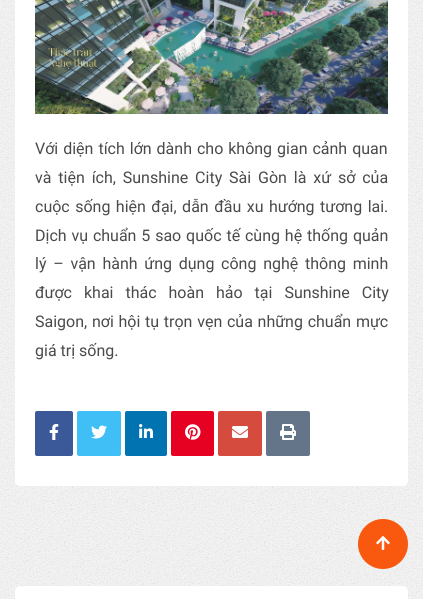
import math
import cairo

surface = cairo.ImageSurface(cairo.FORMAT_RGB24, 423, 599)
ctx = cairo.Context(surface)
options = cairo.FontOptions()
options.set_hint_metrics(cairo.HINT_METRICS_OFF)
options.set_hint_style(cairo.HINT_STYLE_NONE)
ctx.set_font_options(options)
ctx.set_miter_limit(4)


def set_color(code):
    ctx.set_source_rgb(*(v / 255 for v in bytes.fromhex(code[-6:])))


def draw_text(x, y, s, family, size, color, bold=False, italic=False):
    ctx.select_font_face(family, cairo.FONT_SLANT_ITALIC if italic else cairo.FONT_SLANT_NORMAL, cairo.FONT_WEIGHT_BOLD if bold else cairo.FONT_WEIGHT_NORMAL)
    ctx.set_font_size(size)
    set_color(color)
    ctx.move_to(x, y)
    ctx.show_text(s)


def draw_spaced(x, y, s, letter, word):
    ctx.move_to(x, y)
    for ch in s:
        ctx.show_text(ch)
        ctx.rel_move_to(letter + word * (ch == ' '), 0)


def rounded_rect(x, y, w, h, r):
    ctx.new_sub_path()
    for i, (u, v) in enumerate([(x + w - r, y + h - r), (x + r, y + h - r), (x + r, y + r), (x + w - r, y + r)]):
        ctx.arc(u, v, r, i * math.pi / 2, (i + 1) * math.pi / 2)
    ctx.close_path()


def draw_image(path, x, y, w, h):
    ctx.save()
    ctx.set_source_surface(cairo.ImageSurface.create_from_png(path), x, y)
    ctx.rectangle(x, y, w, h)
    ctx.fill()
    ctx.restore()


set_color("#f5f5f5")
ctx.paint()
draw_image("assets/img1.png", 0, 0, 423, 599)
set_color("#ffffff")
rounded_rect(15, -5, 393, 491, 5)
ctx.fill()
draw_image("assets/img2.png", 35, 0, 353, 114)
ctx.select_font_face("Roboto")
ctx.set_font_size(16)
set_color("#4a4a4a")
draw_spaced(35, 154, "Với diện tích lớn dành cho không gian cảnh quan", 0, 1)
draw_spaced(35, 183, "và tiện ích, Sunshine City Sài Gòn là xứ sở của", 0, 2.9)
draw_spaced(35, 212, "cuộc sống hiện đại, dẫn đầu xu hướng tương lai.", 0, 1.5)
draw_spaced(35, 241, "Dịch vụ chuẩn 5 sao quốc tế cùng hệ thống quản", 0, 0.9)
draw_spaced(35, 269, "lý – vận hành ứng dụng công nghệ thông minh", 0, 2.75)
draw_spaced(35, 298, "được khai thác hoàn hảo tại Sunshine City", 0, 8)
draw_spaced(35, 327, "Saigon, nơi hội tụ trọn vẹn của những chuẩn mực", 0, 0.75)
draw_text(35, 356, "giá trị sống.", "Roboto", 16, "#4a4a4a")
set_color("#3b5999")
rounded_rect(35, 411, 38, 45, 2)
ctx.fill()
draw_image("assets/img3.png", 49, 424, 10, 16)
set_color("#3fbff5")
rounded_rect(77, 411, 44, 45, 2)
ctx.fill()
draw_image("assets/img4.png", 91, 425, 16, 14)
set_color("#0073b0")
rounded_rect(125, 411, 42, 45, 2)
ctx.fill()
draw_image("assets/img5.png", 139, 424, 14, 14)
set_color("#e60122")
rounded_rect(171, 411, 43, 45, 2)
ctx.fill()
draw_image("assets/img6.png", 185, 424, 16, 16)
set_color("#d54b3d")
rounded_rect(218, 411, 44, 45, 2)
ctx.fill()
draw_image("assets/img7.png", 232, 426, 16, 12)
set_color("#647589")
rounded_rect(266, 411, 44, 45, 2)
ctx.fill()
draw_image("assets/img8.png", 280, 424, 16, 16)
set_color("#ffffff")
rounded_rect(15, 586, 393, 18, 5)
ctx.fill()
set_color("#f9590f")
ctx.arc(383, 544, 25, 0, 2 * math.pi)
ctx.fill()
draw_image("assets/img9.png", 376, 536, 14, 14)
surface.write_to_png("output.png")
